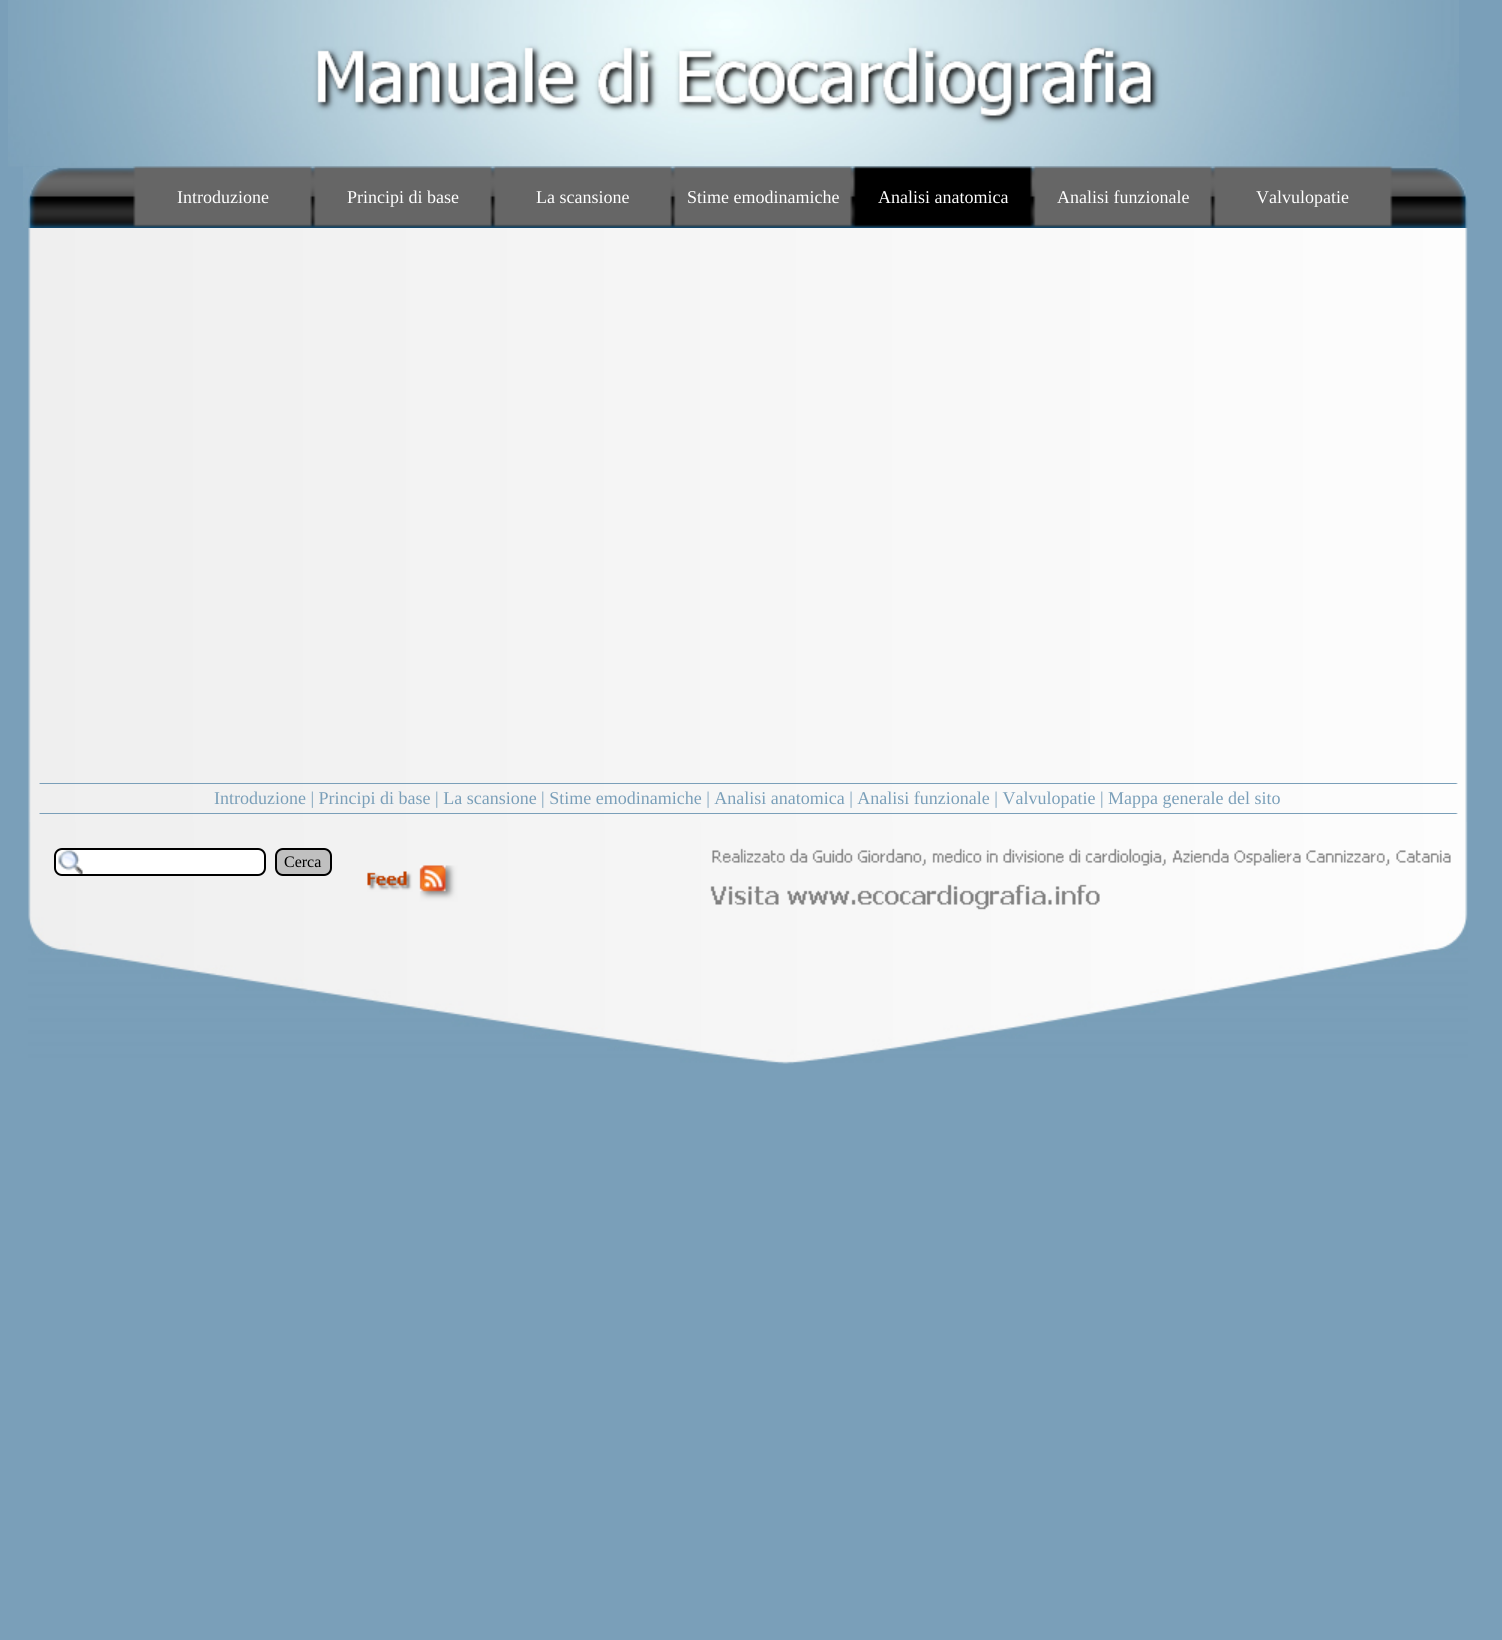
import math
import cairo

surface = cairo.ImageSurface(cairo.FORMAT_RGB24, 1502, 1640)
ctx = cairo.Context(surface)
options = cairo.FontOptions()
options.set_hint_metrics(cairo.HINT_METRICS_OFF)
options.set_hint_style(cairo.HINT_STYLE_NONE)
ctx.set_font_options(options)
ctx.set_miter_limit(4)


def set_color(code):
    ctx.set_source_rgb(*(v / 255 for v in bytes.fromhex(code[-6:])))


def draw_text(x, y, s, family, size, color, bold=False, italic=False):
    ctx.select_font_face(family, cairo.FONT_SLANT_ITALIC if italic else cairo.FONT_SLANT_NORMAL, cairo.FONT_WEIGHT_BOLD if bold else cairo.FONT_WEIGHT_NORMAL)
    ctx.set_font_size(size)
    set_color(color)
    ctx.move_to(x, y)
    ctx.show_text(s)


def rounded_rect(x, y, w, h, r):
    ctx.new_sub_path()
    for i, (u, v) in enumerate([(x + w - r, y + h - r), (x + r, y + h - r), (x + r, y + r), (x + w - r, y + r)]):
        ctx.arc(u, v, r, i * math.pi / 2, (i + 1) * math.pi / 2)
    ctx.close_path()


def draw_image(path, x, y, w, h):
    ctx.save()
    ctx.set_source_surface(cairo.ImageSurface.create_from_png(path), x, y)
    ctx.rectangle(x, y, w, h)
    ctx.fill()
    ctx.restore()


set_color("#7a9fb9")
ctx.paint()
draw_image("assets/img1.png", 8, 0, 1451, 167)
draw_image("assets/img2.png", 23, 166, 1445, 62)
draw_image("assets/img3.png", 133, 166, 180, 61)
draw_text(177, 203, "Introduzione", "Liberation Serif", 18, "#ffffff")
draw_image("assets/img4.png", 313, 166, 180, 61)
draw_text(347, 203, "Principi di base", "Liberation Serif", 18, "#ffffff")
draw_image("assets/img5.png", 493, 166, 180, 61)
draw_text(536, 203, "La scansione", "Liberation Serif", 18, "#ffffff")
draw_image("assets/img6.png", 673, 166, 180, 61)
draw_text(687, 203, "Stime emodinamiche", "Liberation Serif", 18, "#ffffff")
draw_image("assets/img7.png", 853, 166, 180, 61)
draw_text(878, 203, "Analisi anatomica", "Liberation Serif", 18, "#ffffff")
draw_image("assets/img8.png", 1033, 166, 180, 61)
draw_text(1057, 203, "Analisi funzionale", "Liberation Serif", 18, "#ffffff")
draw_image("assets/img9.png", 1213, 166, 180, 61)
draw_text(1256, 203, "Valvulopatie", "Liberation Serif", 18, "#ffffff")
draw_image("assets/img10.png", 28, 228, 1440, 594)
set_color("#7a9fb9")
ctx.new_path()
ctx.move_to(39, 783)
ctx.line_to(1458, 783)
ctx.line_to(1456, 784)
ctx.line_to(40, 784)
ctx.close_path()
ctx.fill()
ctx.new_path()
ctx.move_to(1458, 814)
ctx.line_to(39, 814)
ctx.line_to(40, 813)
ctx.line_to(1456, 813)
ctx.close_path()
ctx.fill()
draw_text(214, 804, "Introduzione | Principi di base | La scansione | Stime emodinamiche | Analisi anatomica | Analisi funzionale | Valvulopatie | Mappa generale del sito", "Liberation Serif", 18, "#7a9fb9")
draw_image("assets/img11.png", 28, 822, 1440, 242)
set_color("#ffffff")
rounded_rect(54, 848, 212, 28, 8)
ctx.fill()
draw_image("assets/img12.png", 58, 850, 25, 24)
rounded_rect(55, 849, 210, 26, 7)
set_color("#000000")
ctx.stroke()
set_color("#c0c0c0")
rounded_rect(276, 849, 55, 26, 7)
ctx.fill_preserve()
set_color("#000000")
ctx.stroke()
draw_text(284, 867, "Cerca", "Liberation Serif", 16, "#000000")
surface.write_to_png("output.png")
